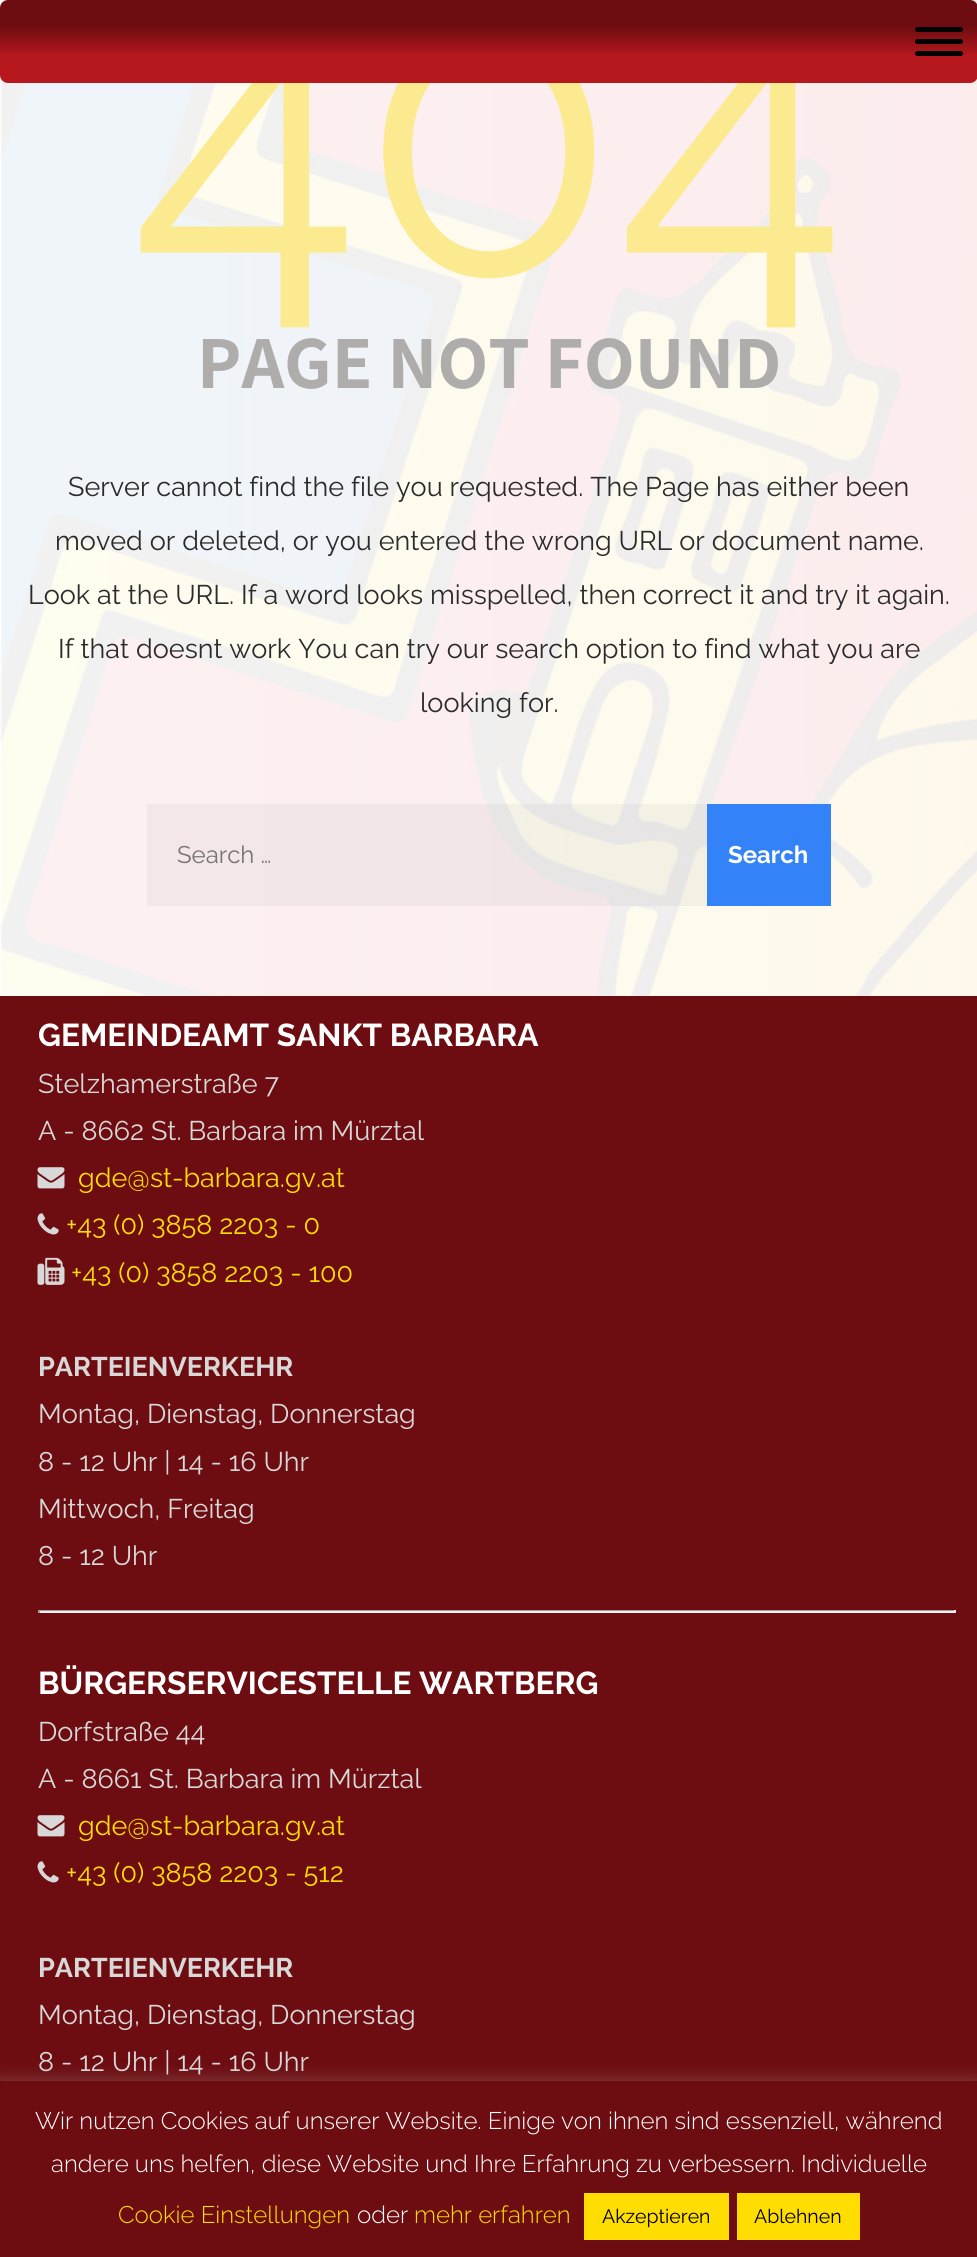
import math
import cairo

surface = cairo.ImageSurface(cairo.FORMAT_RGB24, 977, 2257)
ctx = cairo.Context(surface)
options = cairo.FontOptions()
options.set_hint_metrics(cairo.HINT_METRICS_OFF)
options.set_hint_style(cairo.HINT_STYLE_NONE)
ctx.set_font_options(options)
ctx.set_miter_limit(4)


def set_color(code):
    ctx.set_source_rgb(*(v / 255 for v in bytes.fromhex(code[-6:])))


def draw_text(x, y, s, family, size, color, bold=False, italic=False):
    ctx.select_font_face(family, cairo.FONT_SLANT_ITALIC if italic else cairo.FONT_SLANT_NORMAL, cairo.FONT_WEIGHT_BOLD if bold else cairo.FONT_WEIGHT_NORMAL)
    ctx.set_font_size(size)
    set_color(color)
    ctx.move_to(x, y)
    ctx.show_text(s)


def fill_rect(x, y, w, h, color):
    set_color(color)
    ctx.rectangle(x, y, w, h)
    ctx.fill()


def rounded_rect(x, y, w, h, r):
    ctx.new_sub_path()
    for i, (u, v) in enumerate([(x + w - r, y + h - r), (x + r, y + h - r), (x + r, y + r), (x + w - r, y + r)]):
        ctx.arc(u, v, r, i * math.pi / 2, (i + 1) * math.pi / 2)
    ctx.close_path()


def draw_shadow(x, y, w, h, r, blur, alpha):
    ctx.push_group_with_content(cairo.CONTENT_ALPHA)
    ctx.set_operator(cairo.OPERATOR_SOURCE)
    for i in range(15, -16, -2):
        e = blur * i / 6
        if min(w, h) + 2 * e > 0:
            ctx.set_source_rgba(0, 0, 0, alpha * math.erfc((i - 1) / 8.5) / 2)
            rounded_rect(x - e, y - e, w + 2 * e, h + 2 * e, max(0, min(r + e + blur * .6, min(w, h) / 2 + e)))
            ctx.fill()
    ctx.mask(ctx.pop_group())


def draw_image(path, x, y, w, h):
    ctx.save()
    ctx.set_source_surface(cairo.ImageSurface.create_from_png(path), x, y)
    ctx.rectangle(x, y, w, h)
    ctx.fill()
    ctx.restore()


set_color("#ffffff")
ctx.paint()
draw_image("assets/img1.png", 0, 0, 977, 996)
draw_text(131, 274, "404", "Raleway", 420, "#fcea90")
gradient = cairo.LinearGradient(489, 0, 489, 83)
gradient.add_color_stop_rgba(0.32, 0.427, 0.051, 0.067, 1)
gradient.add_color_stop_rgba(0.68, 0.718, 0.094, 0.114, 1)
ctx.set_source(gradient)
rounded_rect(0, 0, 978, 83, 8)
ctx.fill()
set_color("#000000")
rounded_rect(915, 27, 48, 5, 2.5)
ctx.fill()
rounded_rect(915, 39, 48, 5, 2.5)
ctx.fill()
rounded_rect(915, 51, 48, 5, 2.5)
ctx.fill()
draw_text(197, 388, "PAGE NOT FOUND", "Assistant", 75, "#aeadac", bold=True)
draw_text(68, 496, "Server cannot find the file you requested. The Page has either been", "Raleway", 27, "#2b2b2b")
draw_text(55, 550, "moved or deleted, or you entered the wrong URL or document name.", "Raleway", 27, "#2b2b2b")
draw_text(28, 604, "Look at the URL. If a word looks misspelled, then correct it and try it again.", "Raleway", 27, "#2b2b2b")
draw_text(58, 658, "If that doesnt work You can try our search option to find what you are", "Raleway", 27, "#2b2b2b")
draw_text(420, 712, "looking for.", "Raleway", 27, "#2b2b2b")
ctx.set_source_rgba(0, 0, 0, 0.04)
ctx.rectangle(147, 804, 560, 102)
ctx.fill()
draw_text(177, 863, "Search …", "Raleway", 24, "#757575")
fill_rect(707, 804, 124, 102, "#3382f8")
draw_text(728, 863, "Search", "Raleway", 24, "#ffffff", bold=True)
fill_rect(0, 996, 977, 1085, "#6d0d11")
draw_text(38, 1046, "GEMEINDEAMT SANKT BARBARA", "Raleway", 31.6, "#ffffff", bold=True)
draw_text(38, 1093, "Stelzhamerstraße 7", "Raleway", 27, "#d8d8d8")
draw_text(38, 1140, "A - 8662 St. Barbara im Mürztal", "Raleway", 27, "#d8d8d8")
draw_image("assets/img2.png", 37, 1167, 28, 22)
draw_text(78, 1187, "gde@st-barbara.gv.at", "Raleway", 27, "#ffdd00")
draw_image("assets/img3.png", 37, 1213, 22, 22)
draw_text(66, 1234, "+43 (0) 3858 2203 - 0", "Raleway", 27, "#ffdd00")
draw_image("assets/img4.png", 37, 1257, 28, 28)
draw_text(71, 1282, "+43 (0) 3858 2203 - 100", "Raleway", 27, "#ffdd00")
draw_text(38, 1376, "PARTEIENVERKEHR", "Raleway", 27, "#d8d8d8", bold=True)
draw_text(38, 1423, "Montag, Dienstag, Donnerstag", "Raleway", 27, "#d8d8d8")
draw_text(38, 1471, "8 - 12 Uhr | 14 - 16 Uhr", "Raleway", 27, "#d8d8d8")
draw_text(38, 1518, "Mittwoch, Freitag", "Raleway", 27, "#d8d8d8")
draw_text(38, 1565, "8 - 12 Uhr", "Raleway", 27, "#d8d8d8")
fill_rect(38, 1610, 918, 1, "#9f9f9f")
fill_rect(954, 1610, 2, 3, "#eeeeee")
fill_rect(38, 1611, 918, 2, "#eeeeee")
fill_rect(38, 1610, 2, 3, "#9f9f9f")
draw_text(38, 1694, "BÜRGERSERVICESTELLE WARTBERG", "Raleway", 31.6, "#ffffff", bold=True)
draw_text(38, 1741, "Dorfstraße 44", "Raleway", 27, "#d8d8d8")
draw_text(38, 1788, "A - 8661 St. Barbara im Mürztal", "Raleway", 27, "#d8d8d8")
draw_image("assets/img2.png", 37, 1815, 28, 22)
draw_text(78, 1835, "gde@st-barbara.gv.at", "Raleway", 27, "#ffdd00")
draw_image("assets/img3.png", 37, 1861, 22, 22)
draw_text(66, 1882, "+43 (0) 3858 2203 - 512", "Raleway", 27, "#ffdd00")
draw_text(38, 1977, "PARTEIENVERKEHR", "Raleway", 27, "#d8d8d8", bold=True)
draw_text(38, 2024, "Montag, Dienstag, Donnerstag", "Raleway", 27, "#d8d8d8")
draw_text(38, 2071, "8 - 12 Uhr | 14 - 16 Uhr", "Raleway", 27, "#d8d8d8")
set_color("#acabab")
draw_shadow(0, 2079, 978, 177, 0, 7.5, 0.3)
fill_rect(0, 2081, 977, 176, "#6d0d11")
draw_text(35, 2129, "Wir nutzen Cookies auf unserer Website. Einige von ihnen sind essenziell, während", "Raleway Light", 24, "#ffffff")
draw_text(51, 2172, "andere uns helfen, diese Website und Ihre Erfahrung zu verbessern. Individuelle", "Raleway Light", 24, "#ffffff")
draw_text(118, 2223, "Cookie Einstellungen", "Raleway Light", 24, "#ffdd00")
draw_text(357, 2223, "oder", "Raleway Light", 24, "#ffffff")
draw_text(414, 2223, "mehr erfahren", "Raleway Light", 24, "#ffdd00")
fill_rect(584, 2193, 145, 47, "#ffdd00")
draw_text(602, 2223, "Akzeptieren", "Raleway", 19.5, "#000000")
fill_rect(737, 2193, 123, 47, "#ffdd00")
draw_text(754, 2223, "Ablehnen", "Raleway", 19.5, "#000000")
surface.write_to_png("output.png")
